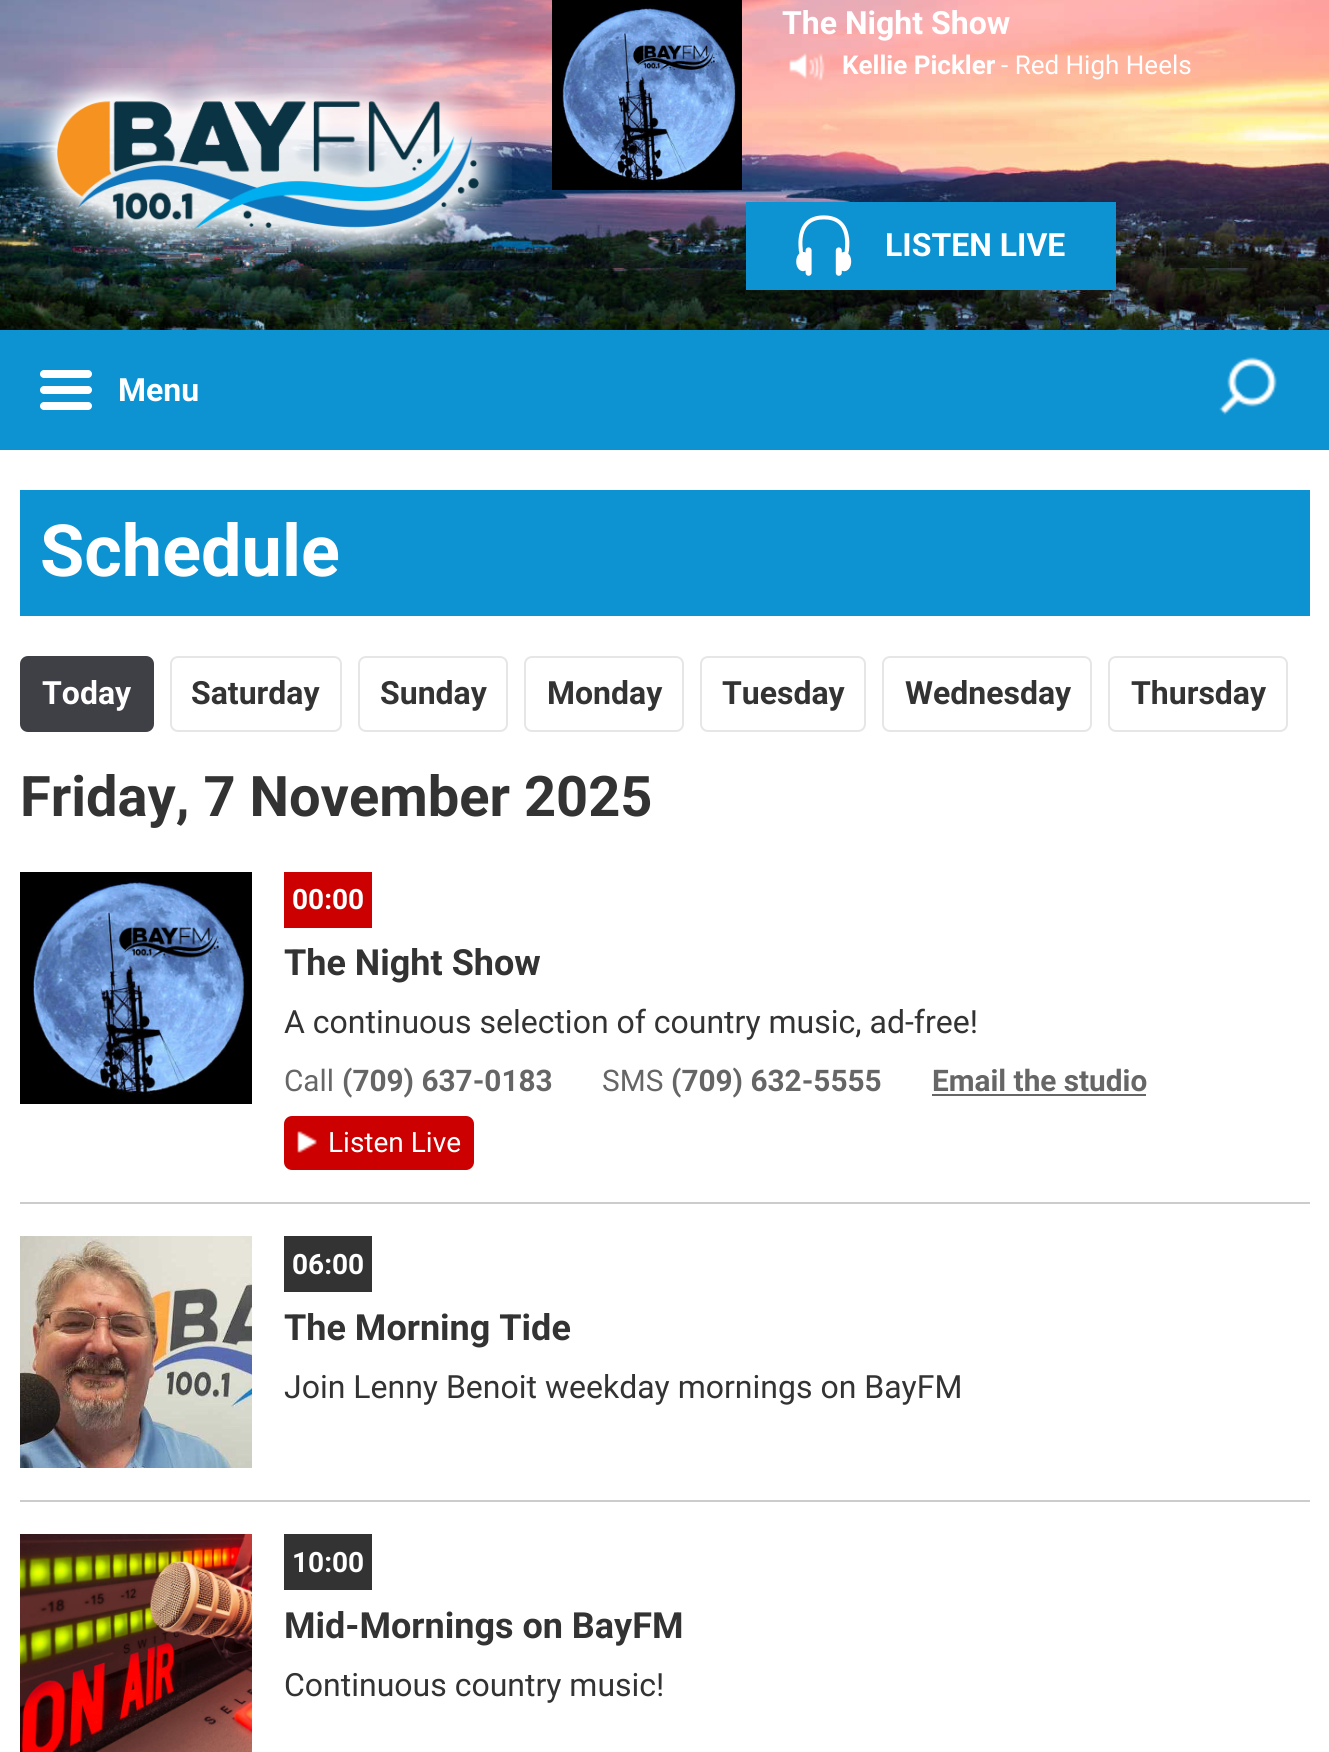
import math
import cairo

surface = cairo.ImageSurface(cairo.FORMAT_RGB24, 1329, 1752)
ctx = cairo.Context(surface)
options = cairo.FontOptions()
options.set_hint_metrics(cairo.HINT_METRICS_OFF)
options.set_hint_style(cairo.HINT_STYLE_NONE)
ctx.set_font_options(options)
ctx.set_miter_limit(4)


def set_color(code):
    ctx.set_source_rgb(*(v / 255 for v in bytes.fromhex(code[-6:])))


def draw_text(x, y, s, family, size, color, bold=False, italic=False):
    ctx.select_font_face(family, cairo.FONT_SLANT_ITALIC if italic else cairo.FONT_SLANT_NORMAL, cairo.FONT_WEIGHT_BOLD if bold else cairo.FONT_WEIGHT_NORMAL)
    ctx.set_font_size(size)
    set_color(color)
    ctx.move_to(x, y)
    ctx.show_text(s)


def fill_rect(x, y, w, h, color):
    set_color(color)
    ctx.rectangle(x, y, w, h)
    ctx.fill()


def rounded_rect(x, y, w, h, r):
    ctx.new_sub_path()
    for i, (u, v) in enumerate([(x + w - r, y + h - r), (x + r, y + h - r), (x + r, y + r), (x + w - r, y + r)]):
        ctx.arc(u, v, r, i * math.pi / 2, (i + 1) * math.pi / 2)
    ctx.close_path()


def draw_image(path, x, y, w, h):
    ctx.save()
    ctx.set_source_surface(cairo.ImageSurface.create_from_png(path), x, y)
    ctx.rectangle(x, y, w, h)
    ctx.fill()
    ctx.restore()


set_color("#ffffff")
ctx.paint()
draw_image("assets/img1.png", 0, 0, 1329, 330)
draw_image("assets/img2.png", 21, 68, 491, 194)
draw_image("assets/img3.png", 552, 0, 190, 190)
draw_text(782, 34, "The Night Show", "Roboto", 32, "#ffffff", bold=True)
draw_image("assets/img4.png", 789, 53, 36, 28)
draw_text(842, 74, "Kellie Pickler", "Roboto", 26, "#ffffff", bold=True)
draw_text(1001, 74, "- Red High Heels", "Roboto", 26, "#ffffff")
fill_rect(746, 202, 370, 88, "#0d93d2")
draw_image("assets/img5.png", 796, 215, 56, 61)
draw_text(885, 256, "LISTEN LIVE", "Roboto", 32, "#ffffff", bold=True)
fill_rect(0, 330, 1329, 120, "#0d93d2")
set_color("#ffffff")
rounded_rect(40, 370, 52, 8, 4)
ctx.fill()
rounded_rect(40, 386, 52, 8, 4)
ctx.fill()
rounded_rect(40, 402, 52, 8, 4)
ctx.fill()
draw_text(118, 401, "Menu", "Roboto", 32, "#ffffff", bold=True)
draw_image("assets/img6.png", 1219, 357, 58, 58)
fill_rect(20, 490, 1290, 126, "#0d93d2")
draw_text(40, 576, "Schedule", "Roboto", 72, "#ffffff", bold=True)
set_color("#3f3f46")
rounded_rect(21, 657, 132, 74, 7)
ctx.fill_preserve()
ctx.stroke()
draw_text(42, 704, "Today", "Roboto", 32, "#ffffff", bold=True)
rounded_rect(171, 657, 170, 74, 7)
set_color("#e6e6e6")
ctx.stroke()
draw_text(191, 704, "Saturday", "Roboto", 32, "#333333", bold=True)
rounded_rect(359, 657, 148, 74, 7)
set_color("#e6e6e6")
ctx.stroke()
draw_text(380, 704, "Sunday", "Roboto", 32, "#333333", bold=True)
rounded_rect(525, 657, 158, 74, 7)
set_color("#e6e6e6")
ctx.stroke()
draw_text(547, 704, "Monday", "Roboto", 32, "#333333", bold=True)
rounded_rect(701, 657, 164, 74, 7)
set_color("#e6e6e6")
ctx.stroke()
draw_text(722, 704, "Tuesday", "Roboto", 32, "#333333", bold=True)
rounded_rect(883, 657, 208, 74, 7)
set_color("#e6e6e6")
ctx.stroke()
draw_text(905, 704, "Wednesday", "Roboto", 32, "#333333", bold=True)
rounded_rect(1109, 657, 178, 74, 7)
set_color("#e6e6e6")
ctx.stroke()
draw_text(1131, 704, "Thursday", "Roboto", 32, "#333333", bold=True)
draw_text(20, 816, "Friday, 7 November 2025", "Roboto", 56, "#333333", bold=True)
draw_image("assets/img7.png", 20, 872, 232, 232)
fill_rect(284, 872, 88, 56, "#cc0000")
draw_text(292, 909, "00:00", "Roboto", 28, "#ffffff", bold=True)
draw_text(284, 975, "The Night Show", "Roboto", 36, "#333333", bold=True)
draw_text(284, 1033, "A continuous selection of country music, ad-free!", "Roboto", 32, "#333333")
draw_text(284, 1091, "Call", "Roboto", 29.75, "#666666")
draw_text(342, 1091, "(709) 637-0183", "Roboto", 29.75, "#666666", bold=True)
draw_text(602, 1091, "SMS", "Roboto", 29.75, "#666666")
draw_text(671, 1091, "(709) 632-5555", "Roboto", 29.75, "#666666", bold=True)
draw_text(932, 1091, "Email the studio", "Roboto", 29.75, "#666666", bold=True)
fill_rect(932, 1094, 214, 2, "#666666")
set_color("#cc0000")
rounded_rect(284, 1116, 190, 54, 8)
ctx.fill()
draw_image("assets/img8.png", 297, 1131, 20, 22)
draw_text(328, 1152, "Listen Live", "Roboto", 28, "#ffffff")
fill_rect(20, 1202, 1290, 2, "#cccccc")
draw_image("assets/img9.png", 20, 1236, 232, 232)
fill_rect(284, 1236, 88, 56, "#333333")
draw_text(292, 1274, "06:00", "Roboto", 28, "#ffffff", bold=True)
draw_text(284, 1340, "The Morning Tide", "Roboto", 36, "#333333", bold=True)
draw_text(284, 1398, "Join Lenny Benoit weekday mornings on BayFM", "Roboto", 32, "#333333")
fill_rect(20, 1500, 1290, 2, "#cccccc")
draw_image("assets/img10.png", 20, 1534, 232, 218)
fill_rect(284, 1534, 88, 56, "#333333")
draw_text(292, 1572, "10:00", "Roboto", 28, "#ffffff", bold=True)
draw_text(284, 1638, "Mid-Mornings on BayFM", "Roboto", 36, "#333333", bold=True)
draw_text(284, 1696, "Continuous country music!", "Roboto", 32, "#333333")
surface.write_to_png("output.png")
